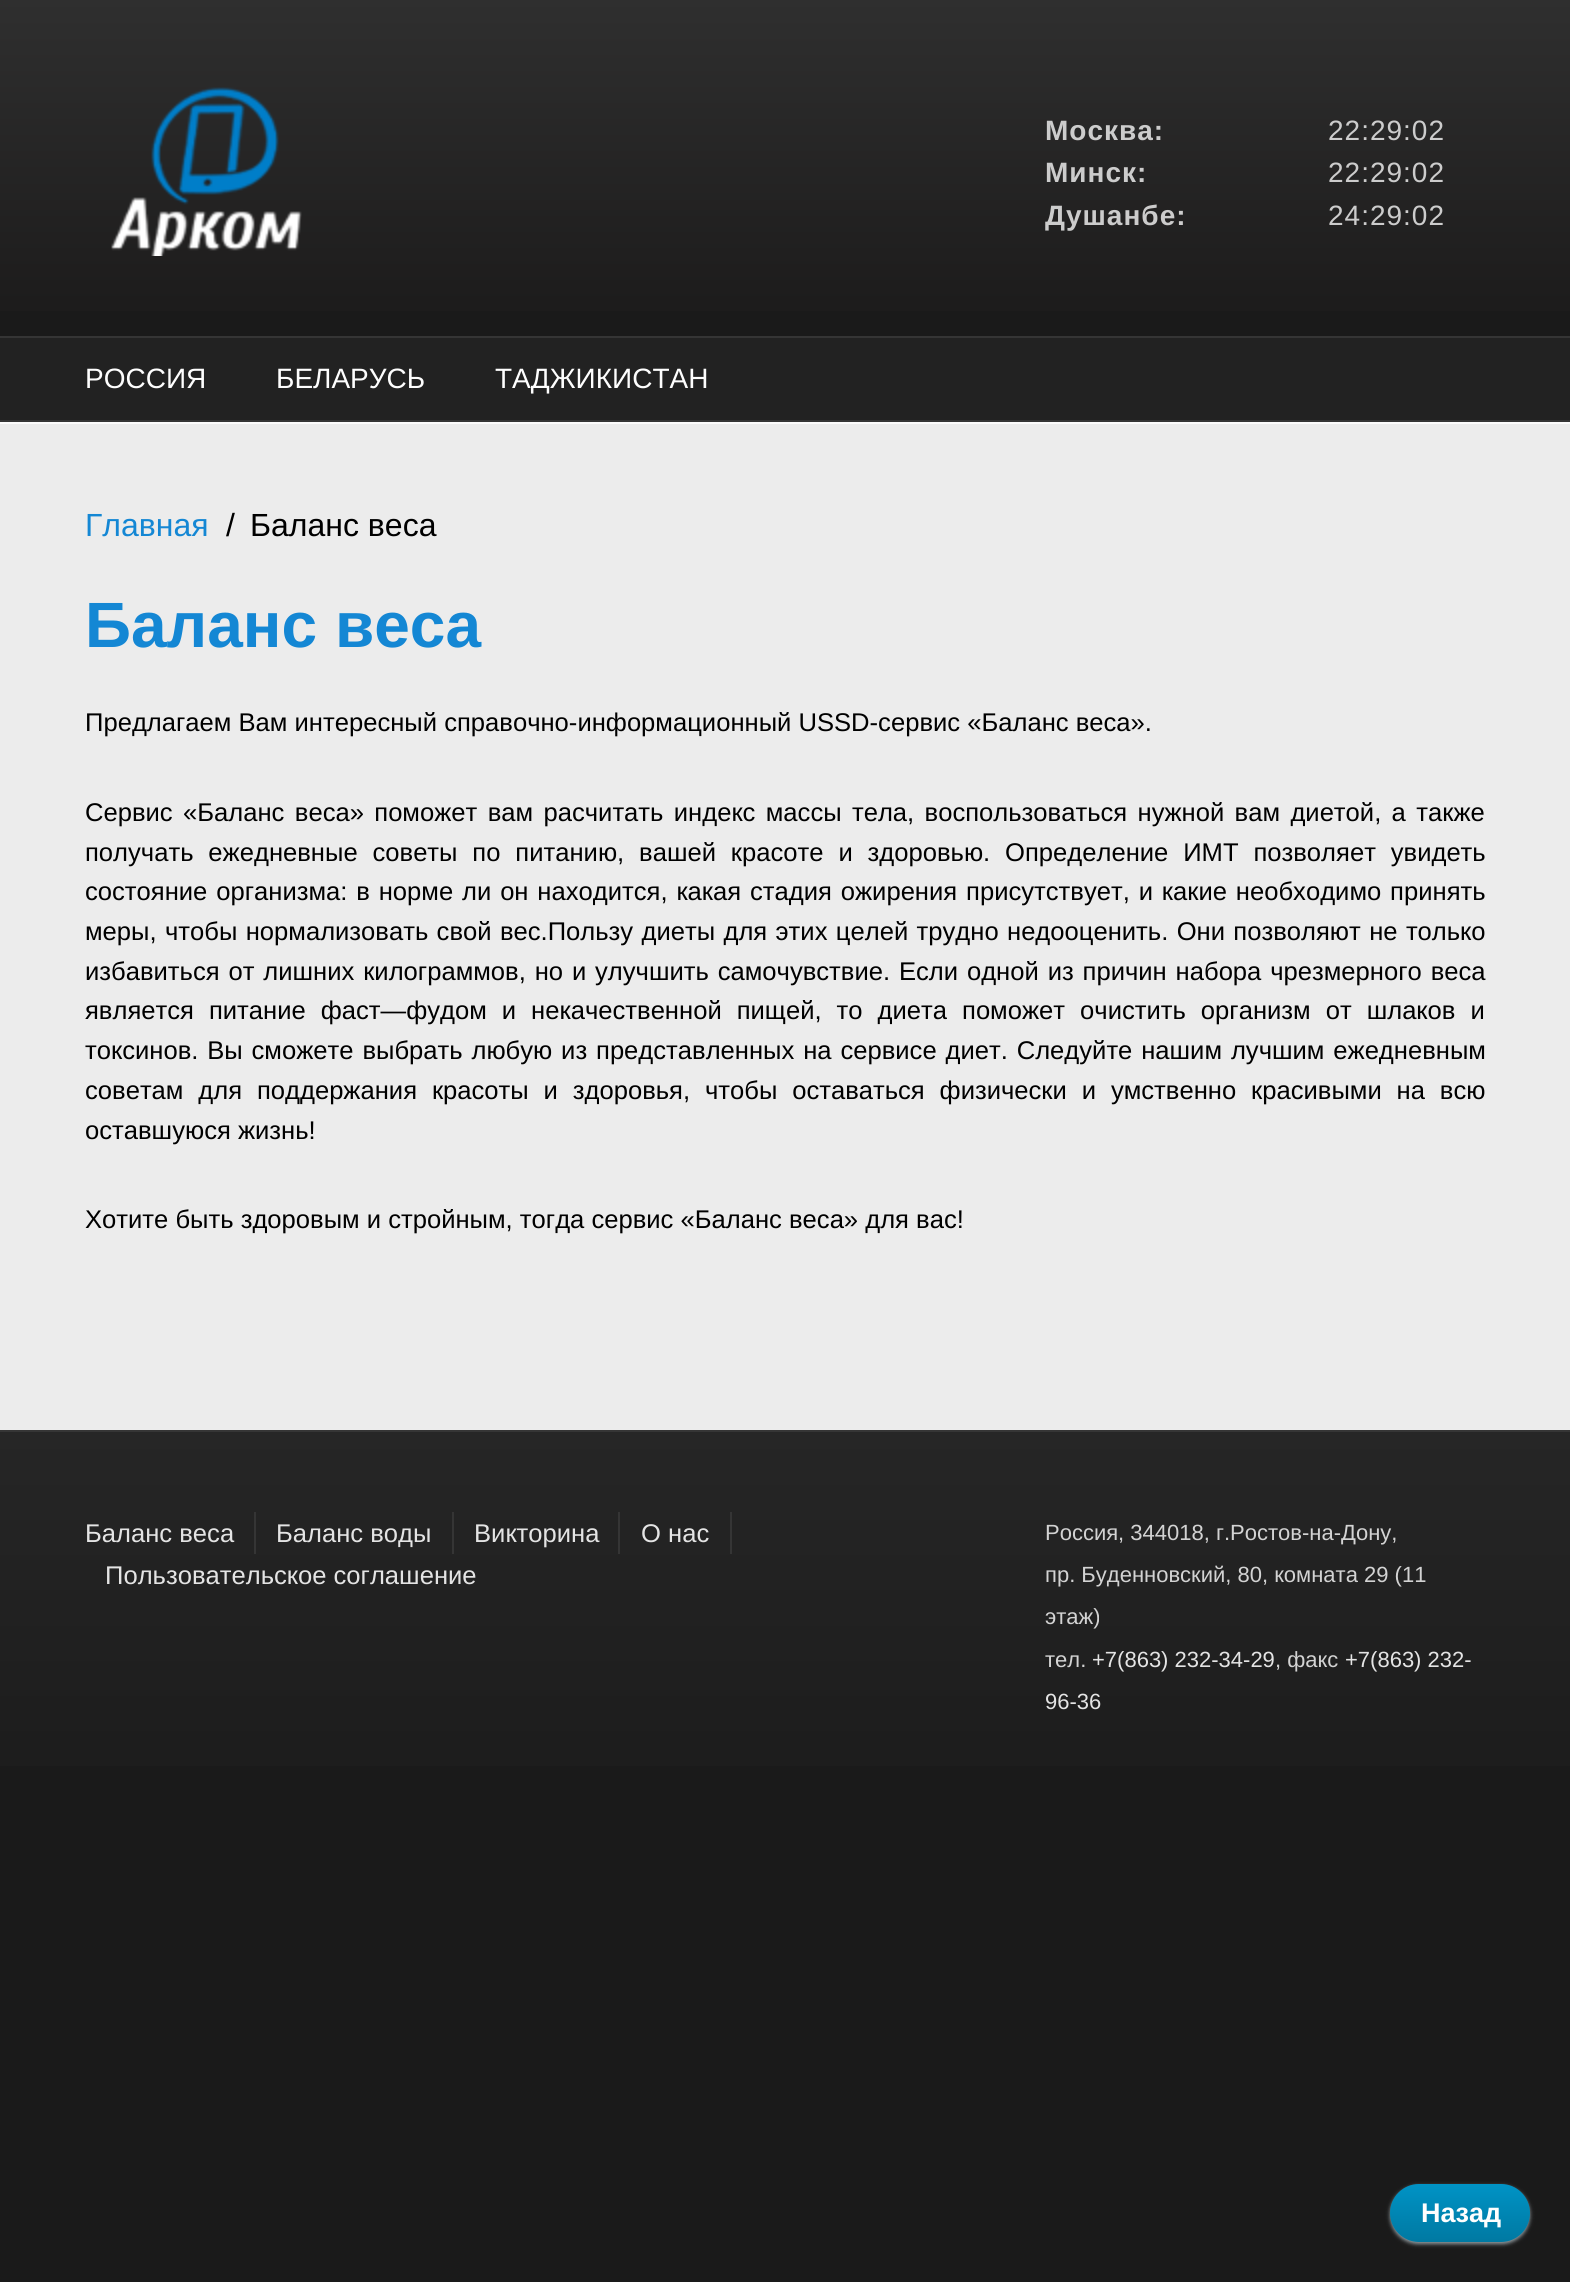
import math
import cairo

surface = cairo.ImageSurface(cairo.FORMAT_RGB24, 1570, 2282)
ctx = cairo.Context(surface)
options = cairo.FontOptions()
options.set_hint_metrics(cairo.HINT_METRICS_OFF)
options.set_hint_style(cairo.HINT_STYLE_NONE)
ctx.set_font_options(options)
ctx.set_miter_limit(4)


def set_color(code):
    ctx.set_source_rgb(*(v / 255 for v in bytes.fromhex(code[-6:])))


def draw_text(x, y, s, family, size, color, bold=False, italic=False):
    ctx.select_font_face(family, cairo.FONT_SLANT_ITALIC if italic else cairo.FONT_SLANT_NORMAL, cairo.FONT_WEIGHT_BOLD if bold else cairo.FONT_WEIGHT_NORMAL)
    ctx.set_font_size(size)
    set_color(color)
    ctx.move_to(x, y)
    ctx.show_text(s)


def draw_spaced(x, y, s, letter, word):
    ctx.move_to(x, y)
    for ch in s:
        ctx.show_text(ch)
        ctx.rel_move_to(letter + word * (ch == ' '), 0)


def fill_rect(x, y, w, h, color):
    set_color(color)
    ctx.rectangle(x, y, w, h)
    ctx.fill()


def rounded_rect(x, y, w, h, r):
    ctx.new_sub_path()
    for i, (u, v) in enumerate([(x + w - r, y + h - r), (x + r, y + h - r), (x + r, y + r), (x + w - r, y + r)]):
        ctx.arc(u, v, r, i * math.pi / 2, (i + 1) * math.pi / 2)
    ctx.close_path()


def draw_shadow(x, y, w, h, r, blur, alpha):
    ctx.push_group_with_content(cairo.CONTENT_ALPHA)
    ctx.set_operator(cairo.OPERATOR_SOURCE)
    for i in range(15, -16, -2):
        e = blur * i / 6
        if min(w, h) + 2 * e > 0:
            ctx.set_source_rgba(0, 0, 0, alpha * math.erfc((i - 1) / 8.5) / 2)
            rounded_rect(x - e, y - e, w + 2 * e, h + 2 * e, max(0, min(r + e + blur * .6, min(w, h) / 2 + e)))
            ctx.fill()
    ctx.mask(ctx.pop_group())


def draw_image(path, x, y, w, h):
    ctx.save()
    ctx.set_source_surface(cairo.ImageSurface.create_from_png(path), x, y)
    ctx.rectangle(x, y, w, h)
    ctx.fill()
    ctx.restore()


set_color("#1a1a1a")
ctx.paint()
gradient = cairo.LinearGradient(785, 0, 785, 336)
gradient.add_color_stop_rgba(0, 0.184, 0.184, 0.184, 1)
gradient.add_color_stop_rgba(1, 0.106, 0.102, 0.102, 1)
ctx.set_source(gradient)
ctx.rectangle(0, 0, 1570, 311)
ctx.fill()
draw_image("assets/img1.png", 111, 87, 191, 169)
ctx.select_font_face("Liberation Sans", cairo.FONT_SLANT_NORMAL, cairo.FONT_WEIGHT_BOLD)
ctx.set_font_size(28)
set_color("#cccccc")
draw_spaced(1045, 140, "Москва:", 1, 0)
ctx.select_font_face("Liberation Sans")
draw_spaced(1328, 140, "22:29:02", 1, 0)
ctx.select_font_face("Liberation Sans", cairo.FONT_SLANT_NORMAL, cairo.FONT_WEIGHT_BOLD)
draw_spaced(1045, 182, "Минск:", 1, 0)
ctx.select_font_face("Liberation Sans")
draw_spaced(1328, 182, "22:29:02", 1, 0)
ctx.select_font_face("Liberation Sans", cairo.FONT_SLANT_NORMAL, cairo.FONT_WEIGHT_BOLD)
draw_spaced(1045, 225, "Душанбе:", 1, 0)
ctx.select_font_face("Liberation Sans")
draw_spaced(1328, 225, "24:29:02", 1, 0)
fill_rect(0, 338, 1570, 82, "#222222")
fill_rect(0, 336, 1570, 2, "#353535")
fill_rect(0, 420, 1570, 2, "#353535")
draw_text(85, 388, "РОССИЯ", "Liberation Sans", 28, "#fefefe")
draw_text(276, 388, "БЕЛАРУСЬ", "Liberation Sans", 28, "#fefefe")
draw_text(495, 388, "ТАДЖИКИСТАН", "Liberation Sans", 28, "#fefefe")
fill_rect(0, 422, 1570, 2, "#fcfcfc")
fill_rect(0, 424, 1570, 1006, "#ececec")
draw_text(85, 536, "Главная", "Liberation Sans", 32, "#1487d4")
draw_text(226, 536, "/", "Liberation Sans", 32, "#000000")
draw_text(250, 536, "Баланс веса", "Liberation Sans", 32, "#000000")
draw_text(85, 647, "Баланс веса", "Liberation Sans", 64, "#1487d4", bold=True)
draw_text(85, 731, "Предлагаем Вам интересный справочно-информационный USSD-сервис «Баланс веса».", "Liberation Sans", 25.6, "#000000")
draw_spaced(85, 821, "Сервис «Баланс веса» поможет вам расчитать индекс массы тела, воспользоваться нужной вам диетой, а также", 0, 3.25)
draw_spaced(85, 861, "получать ежедневные советы по питанию, вашей красоте и здоровью. Определение ИМТ позволяет увидеть", 0, 7.75)
draw_spaced(85, 900, "состояние организма: в норме ли он находится, какая стадия ожирения присутствует, и какие необходимо принять", 0, 1.75)
draw_spaced(85, 940, "меры, чтобы нормализовать свой вес.Пользу диеты для этих целей трудно недооценить. Они позволяют не только", 0, 1.25)
draw_spaced(85, 980, "избавиться от лишних килограммов, но и улучшить самочувствие. Если одной из причин набора чрезмерного веса", 0, 1.75)
draw_spaced(85, 1019, "является питание фаст—фудом и некачественной пищей, то диета поможет очистить организм от шлаков и", 0, 7.9)
draw_spaced(85, 1059, "токсинов. Вы сможете выбрать любую из представленных на сервисе диет. Следуйте нашим лучшим ежедневным", 0, 1.75)
draw_spaced(85, 1099, "советам для поддержания красоты и здоровья, чтобы оставаться физически и умственно красивыми на всю", 0, 7.75)
draw_text(85, 1139, "оставшуюся жизнь!", "Liberation Sans", 25.6, "#000000")
draw_text(85, 1228, "Хотите быть здоровым и стройным, тогда сервис «Баланс веса» для вас!", "Liberation Sans", 25.6, "#000000")
set_color("#939da2")
draw_shadow(1390, 2186, 140, 58, 29, 2, 1)
gradient = cairo.LinearGradient(1460, 2184, 1460, 2242)
gradient.add_color_stop_rgba(0, 0, 0.576, 0.773, 1)
gradient.add_color_stop_rgba(1, 0, 0.475, 0.635, 1)
ctx.set_source(gradient)
rounded_rect(1390, 2184, 140, 58, 29)
ctx.fill()
draw_text(1421, 2222, "Назад", "Liberation Sans", 27, "#fefefe", bold=True)
gradient = cairo.LinearGradient(785, 1432, 785, 1854)
gradient.add_color_stop_rgba(0, 0.149, 0.149, 0.149, 1)
gradient.add_color_stop_rgba(1, 0.102, 0.102, 0.102, 1)
ctx.set_source(gradient)
ctx.rectangle(0, 1432, 1570, 334)
ctx.fill()
fill_rect(0, 1430, 1570, 2, "#353535")
fill_rect(254, 1512, 2, 42, "#353535")
draw_text(85, 1542, "Баланс веса", "Liberation Sans", 25.6, "#e4e4e4")
fill_rect(452, 1512, 2, 42, "#353535")
draw_text(276, 1542, "Баланс воды", "Liberation Sans", 25.6, "#e4e4e4")
fill_rect(618, 1512, 2, 42, "#353535")
draw_text(474, 1542, "Викторина", "Liberation Sans", 25.6, "#e4e4e4")
fill_rect(730, 1512, 2, 42, "#353535")
draw_text(641, 1542, "О нас", "Liberation Sans", 25.6, "#e4e4e4")
draw_text(105, 1584, "Пользовательское соглашение", "Liberation Sans", 25.6, "#e4e4e4")
draw_text(1045, 1540, "Россия, 344018, г.Ростов-на-Дону,", "Liberation Sans", 22, "#d3d3d3")
draw_text(1045, 1582, "пр. Буденновский, 80, комната 29 (11", "Liberation Sans", 22, "#d3d3d3")
draw_text(1045, 1624, "этаж)", "Liberation Sans", 22, "#d3d3d3")
draw_text(1045, 1667, "тел.", "Liberation Sans", 22, "#d3d3d3")
draw_text(1092, 1667, "+7(863) 232-34-29", "Liberation Sans", 22, "#e4e4e4")
draw_text(1275, 1667, ", факс", "Liberation Sans", 22, "#d3d3d3")
draw_text(1345, 1667, "+7(863) 232-", "Liberation Sans", 22, "#e4e4e4")
draw_text(1045, 1709, "96-36", "Liberation Sans", 22, "#e4e4e4")
surface.write_to_png("output.png")
